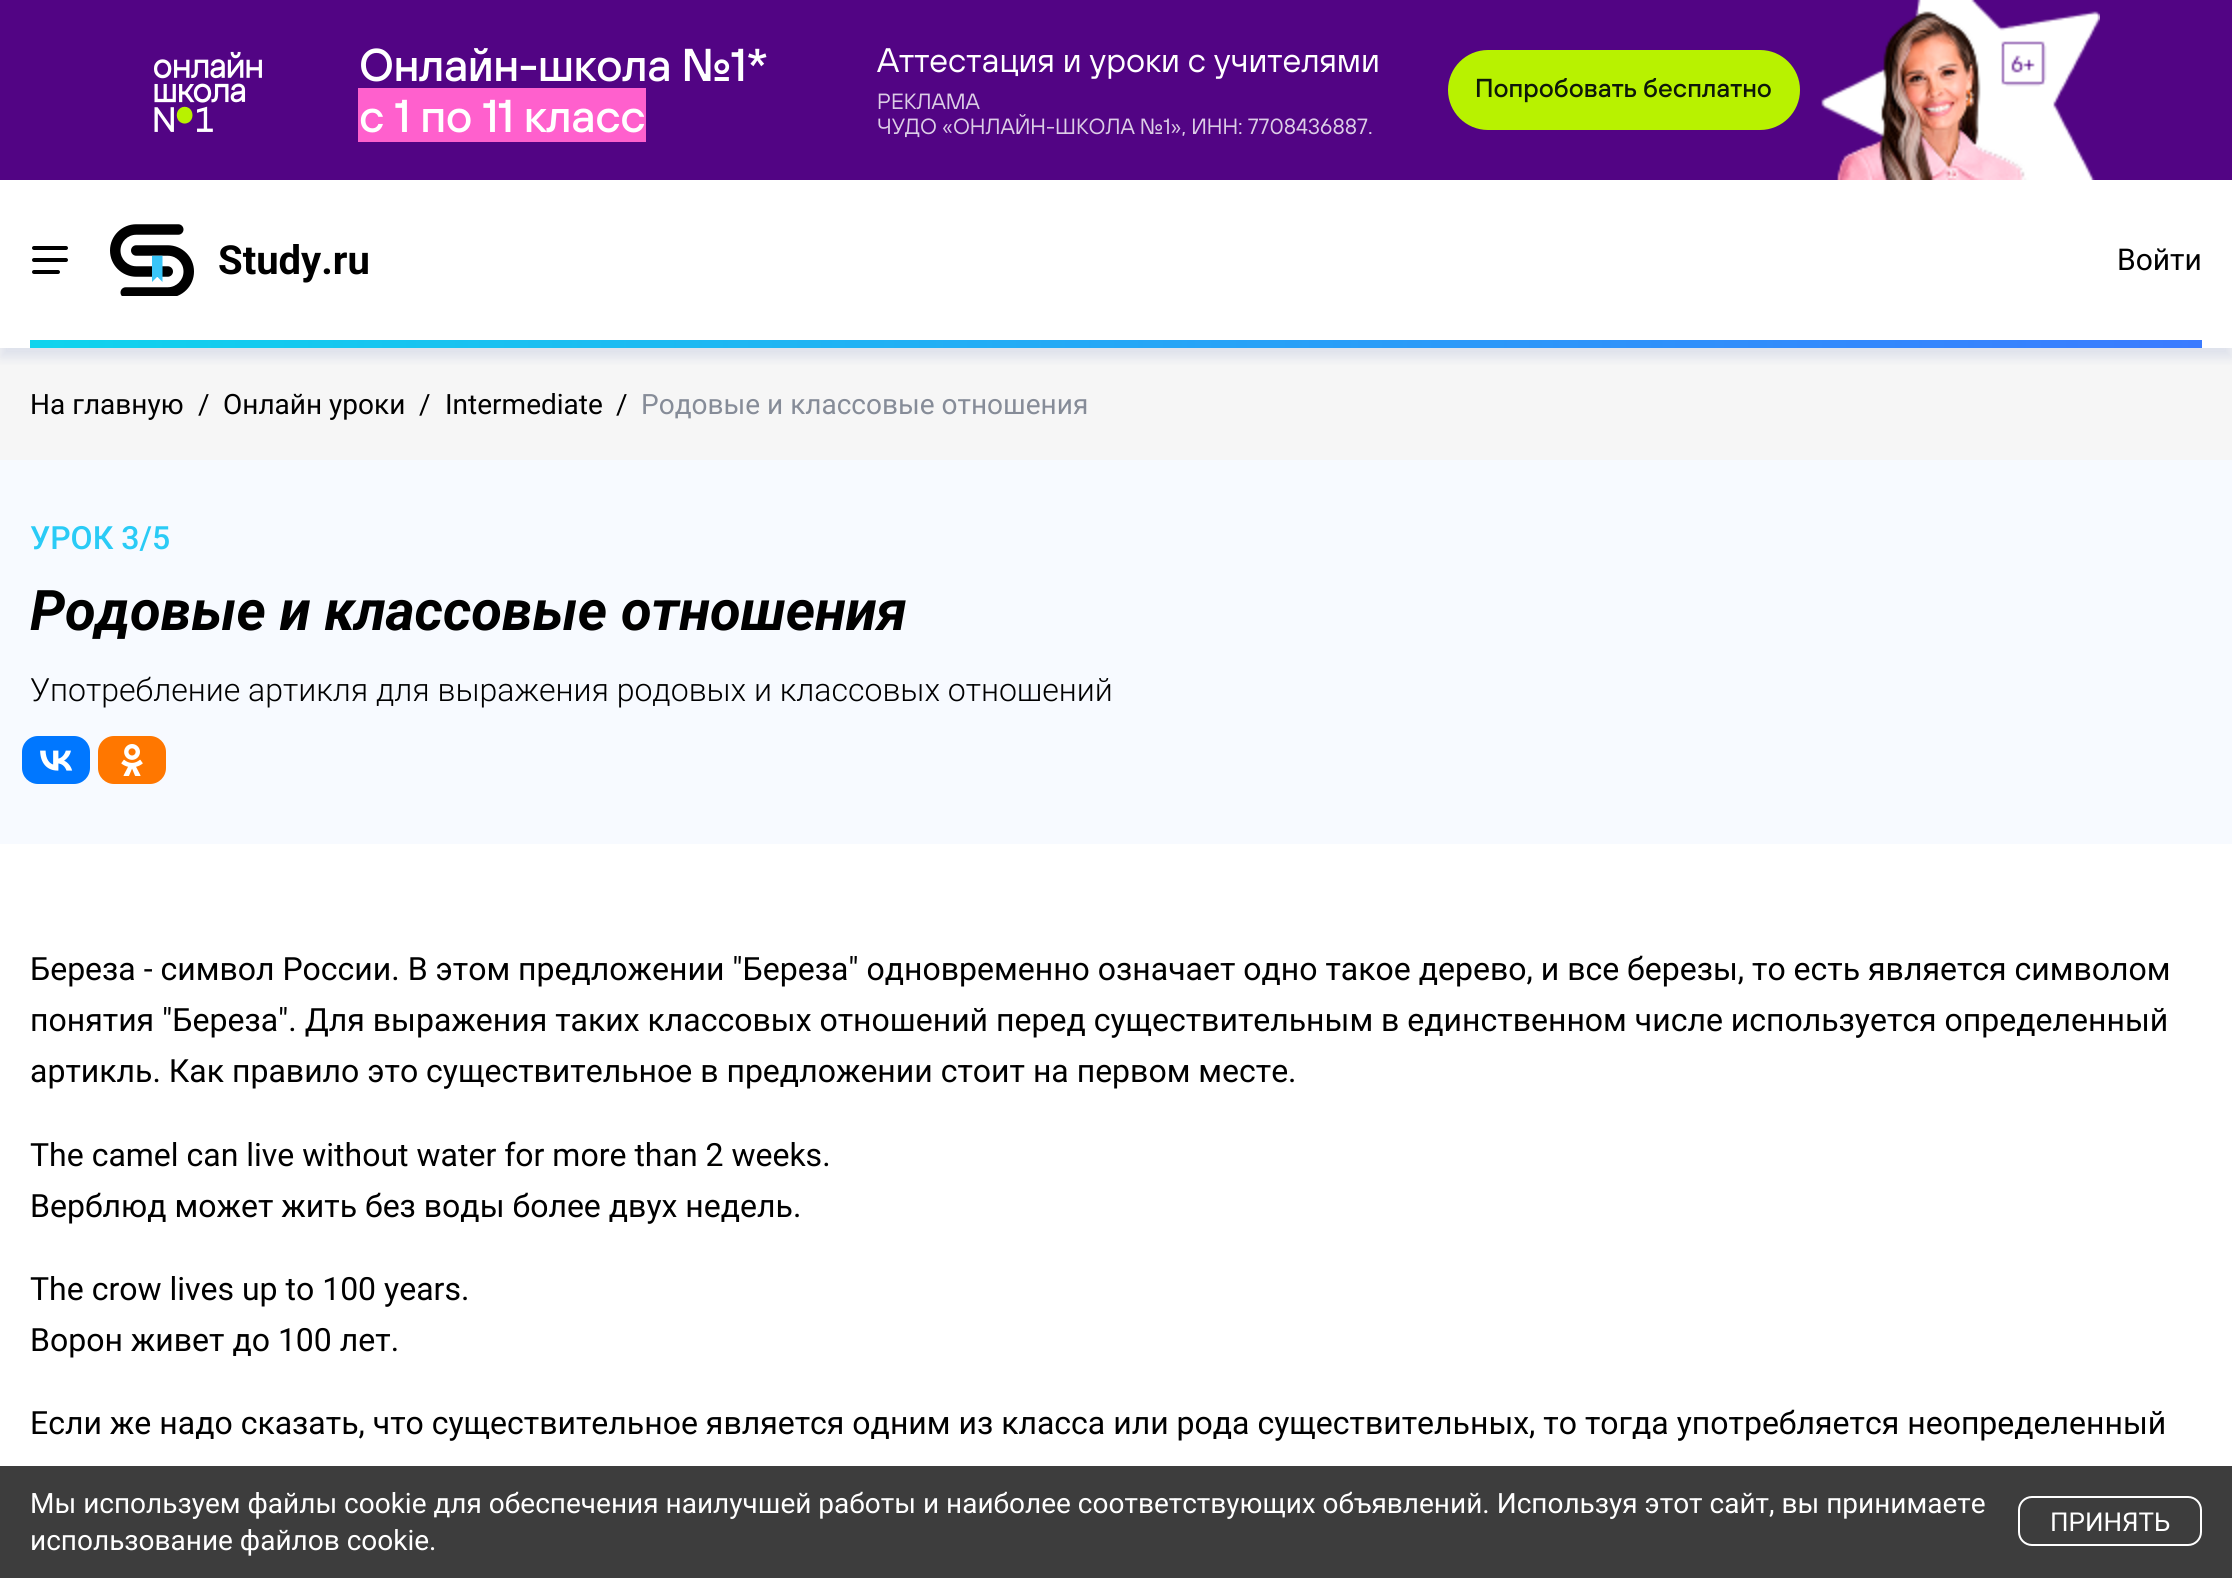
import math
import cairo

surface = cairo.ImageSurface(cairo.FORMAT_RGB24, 2232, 1578)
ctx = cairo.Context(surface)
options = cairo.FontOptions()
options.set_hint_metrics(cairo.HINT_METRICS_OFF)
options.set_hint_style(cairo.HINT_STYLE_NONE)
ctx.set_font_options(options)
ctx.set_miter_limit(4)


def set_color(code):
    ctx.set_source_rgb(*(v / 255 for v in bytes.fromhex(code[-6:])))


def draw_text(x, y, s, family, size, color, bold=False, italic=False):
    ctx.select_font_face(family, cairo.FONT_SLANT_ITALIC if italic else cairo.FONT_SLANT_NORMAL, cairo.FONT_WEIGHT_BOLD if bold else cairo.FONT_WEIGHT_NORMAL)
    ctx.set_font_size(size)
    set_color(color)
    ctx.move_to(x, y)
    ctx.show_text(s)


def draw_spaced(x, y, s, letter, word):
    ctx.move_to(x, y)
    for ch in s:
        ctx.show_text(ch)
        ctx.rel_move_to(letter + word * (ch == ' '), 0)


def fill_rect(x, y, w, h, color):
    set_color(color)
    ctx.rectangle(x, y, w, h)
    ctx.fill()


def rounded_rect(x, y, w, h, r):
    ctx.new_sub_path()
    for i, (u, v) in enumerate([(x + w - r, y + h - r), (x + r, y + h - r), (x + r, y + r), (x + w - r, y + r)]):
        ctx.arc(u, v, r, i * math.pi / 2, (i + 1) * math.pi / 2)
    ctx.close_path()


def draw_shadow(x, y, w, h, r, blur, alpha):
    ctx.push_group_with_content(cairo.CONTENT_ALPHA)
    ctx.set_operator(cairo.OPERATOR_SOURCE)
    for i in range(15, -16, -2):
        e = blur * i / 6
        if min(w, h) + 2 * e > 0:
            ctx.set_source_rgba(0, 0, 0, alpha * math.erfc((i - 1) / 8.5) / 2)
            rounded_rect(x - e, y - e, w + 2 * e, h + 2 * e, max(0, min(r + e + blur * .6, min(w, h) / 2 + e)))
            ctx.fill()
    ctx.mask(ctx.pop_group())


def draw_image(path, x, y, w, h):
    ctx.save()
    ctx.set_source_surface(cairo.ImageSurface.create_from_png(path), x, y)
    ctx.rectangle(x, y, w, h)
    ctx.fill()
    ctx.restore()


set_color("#ffffff")
ctx.paint()
fill_rect(0, 348, 2232, 112, "#f6f6f6")
ctx.save()
ctx.rectangle(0, 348, 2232, 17)
ctx.clip()
set_color("#a8b3d3")
draw_shadow(0, 10, 2232, 348, 0, 5, 0.3)
ctx.restore()
fill_rect(0, 0, 2232, 180, "#520484")
draw_image("assets/img1.png", 1821, 0, 279, 180)
draw_image("assets/img2.png", 154, 51, 108, 81)
ctx.select_font_face("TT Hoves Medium")
ctx.set_font_size(46)
set_color("#ffffff")
draw_spaced(359, 81, "Онлайн-школа №1*", -0.5, 0)
fill_rect(358, 88, 288, 54, "#ff60cd")
set_color("#ffffff")
draw_spaced(359, 132, "с 1 по 11 класс", -0.5, 0)
draw_text(877, 72, "Аттестация и уроки с учителями", "TT Hoves", 34, "#ffffff")
draw_text(877, 109, "РЕКЛАМА", "TT Hoves", 22, "#dccde6")
draw_text(877, 134, "ЧУДО «ОНЛАЙН-ШКОЛА №1», ИНН: 7708436887.", "TT Hoves", 22, "#dccde6")
set_color("#b8f200")
rounded_rect(1448, 50, 352, 80, 40)
ctx.fill()
draw_text(1475, 97, "Попробовать бесплатно", "TT Hoves Medium", 26, "#0e1809")
set_color("#000000")
rounded_rect(32, 246, 36, 4, 2)
ctx.fill()
rounded_rect(32, 258, 36, 4, 2)
ctx.fill()
rounded_rect(32, 270, 28, 4, 2)
ctx.fill()
draw_image("assets/img3.png", 110, 224, 84, 72)
draw_text(218, 274, "Study.ru", "Roboto", 40, "#000000", bold=True)
draw_text(2117, 270, "Войти", "Roboto", 30, "#000000")
gradient = cairo.LinearGradient(30, 344, 2202, 344)
gradient.add_color_stop_rgba(0, 0.063, 0.831, 0.929, 1)
gradient.add_color_stop_rgba(1, 0.227, 0.482, 1, 1)
ctx.set_source(gradient)
ctx.rectangle(30, 340, 2172, 8)
ctx.fill()
draw_text(30, 414, "На главную", "Roboto", 28, "#000000")
draw_text(198, 414, "/", "Roboto", 28, "#000000")
draw_text(223, 414, "Онлайн уроки", "Roboto", 28, "#000000")
draw_text(419, 414, "/", "Roboto", 28, "#000000")
draw_text(445, 414, "Intermediate", "Roboto", 28, "#000000")
draw_text(616, 414, "/", "Roboto", 28, "#000000")
draw_text(641, 414, "Родовые и классовые отношения", "Roboto", 28, "#868c98")
fill_rect(0, 460, 2232, 384, "#f7faff")
draw_text(30, 549, "УРОК 3/5", "Roboto Medium", 32, "#2acbf6")
draw_text(30, 630, "Родовые и классовые отношения", "Roboto", 56, "#000000", bold=True, italic=True)
draw_text(30, 701, "Употребление артикля для выражения родовых и классовых отношений", "Roboto Light", 32, "#000000")
set_color("#0077ff")
rounded_rect(22, 736, 68, 48, 16)
ctx.fill()
draw_image("assets/img4.png", 40, 750, 33, 21)
set_color("#ff7700")
rounded_rect(98, 736, 68, 48, 16)
ctx.fill()
draw_image("assets/img5.png", 121, 744, 22, 32)
draw_text(30, 980, "Береза - символ России. В этом предложении \"Береза\" одновременно означает одно такое дерево, и все березы, то есть является символом", "Roboto", 32, "#000000")
draw_text(30, 1031, "понятия \"Береза\". Для выражения таких классовых отношений перед существительным в единственном числе используется определенный", "Roboto", 32, "#000000")
draw_text(30, 1082, "артикль. Как правило это существительное в предложении стоит на первом месте.", "Roboto", 32, "#000000")
draw_text(30, 1166, "The camel can live without water for more than 2 weeks.", "Roboto", 32, "#000000")
draw_text(30, 1217, "Верблюд может жить без воды более двух недель.", "Roboto", 32, "#000000")
draw_text(30, 1300, "The crow lives up to 100 years.", "Roboto", 32, "#000000")
draw_text(30, 1351, "Ворон живет до 100 лет.", "Roboto", 32, "#000000")
draw_text(30, 1434, "Если же надо сказать, что существительное является одним из класса или рода существительных, то тогда употребляется неопределенный", "Roboto", 32, "#000000")
fill_rect(0, 1466, 2232, 112, "#3d3d3d")
draw_text(30, 1513, "Мы используем файлы cookie для обеспечения наилучшей работы и наиболее соответствующих объявлений. Используя этот сайт, вы принимаете", "Roboto", 28, "#ffffff")
draw_text(30, 1550, "использование файлов cookie.", "Roboto", 28, "#ffffff")
rounded_rect(2019, 1497, 182, 48, 13)
ctx.stroke()
draw_text(2050, 1531, "ПРИНЯТЬ", "Roboto", 26, "#ffffff")
surface.write_to_png("output.png")
